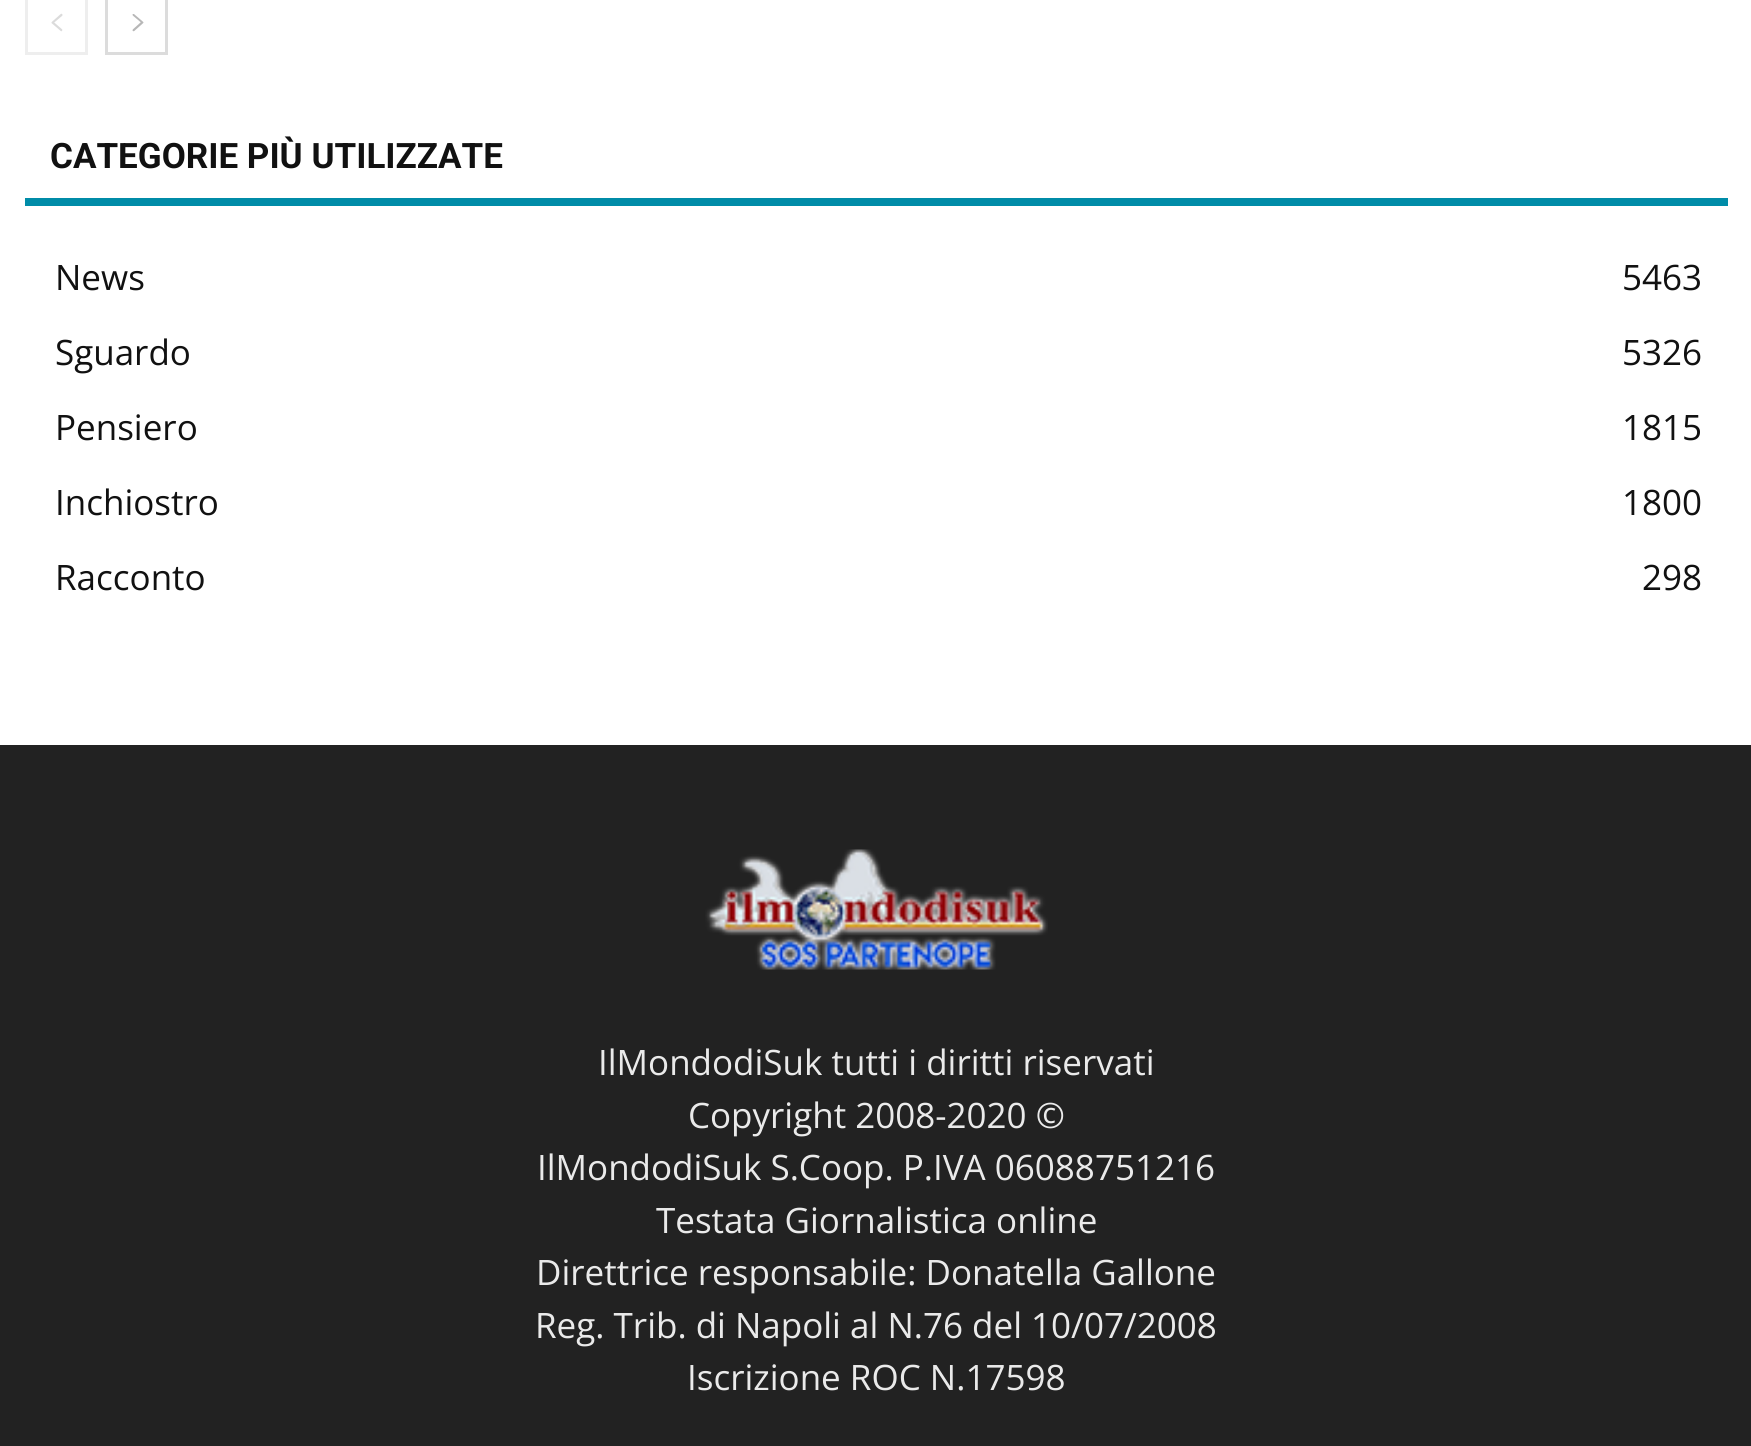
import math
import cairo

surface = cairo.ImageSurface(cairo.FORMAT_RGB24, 1751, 1446)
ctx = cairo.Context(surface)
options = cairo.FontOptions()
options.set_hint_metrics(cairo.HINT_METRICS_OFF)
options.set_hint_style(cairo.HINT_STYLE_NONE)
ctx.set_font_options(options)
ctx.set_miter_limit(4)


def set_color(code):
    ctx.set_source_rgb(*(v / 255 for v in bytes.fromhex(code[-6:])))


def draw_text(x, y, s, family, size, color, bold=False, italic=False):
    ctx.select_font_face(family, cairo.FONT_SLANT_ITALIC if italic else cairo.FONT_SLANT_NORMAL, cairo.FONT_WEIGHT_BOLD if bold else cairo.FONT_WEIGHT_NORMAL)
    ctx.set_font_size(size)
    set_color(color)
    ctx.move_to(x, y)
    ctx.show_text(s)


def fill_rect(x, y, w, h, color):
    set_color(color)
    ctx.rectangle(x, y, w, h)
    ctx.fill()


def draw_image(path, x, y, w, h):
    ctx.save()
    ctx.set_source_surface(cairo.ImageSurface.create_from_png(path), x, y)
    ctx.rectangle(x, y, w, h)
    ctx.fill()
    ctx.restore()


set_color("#ffffff")
ctx.paint()
ctx.rectangle(26.5, -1.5, 60, 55)
set_color("#eeeeee")
ctx.set_line_width(3)
ctx.stroke()
draw_image("assets/img1.png", 51, 13, 12, 19)
ctx.rectangle(106.5, -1.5, 60, 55)
set_color("#dcdcdc")
ctx.stroke()
draw_image("assets/img2.png", 132, 14, 12, 18)
fill_rect(25, 198, 1703, 8, "#008ca8")
draw_text(50, 168, "CATEGORIE PIÙ UTILIZZATE", "Roboto", 35, "#111111", bold=True)
draw_text(55, 290, "News", "Open Sans", 35, "#111111")
draw_text(1622, 290, "5463", "Open Sans", 35, "#111111")
draw_text(55, 365, "Sguardo", "Open Sans", 35, "#111111")
draw_text(1622, 365, "5326", "Open Sans", 35, "#111111")
draw_text(55, 440, "Pensiero", "Open Sans", 35, "#111111")
draw_text(1622, 440, "1815", "Open Sans", 35, "#111111")
draw_text(55, 515, "Inchiostro", "Open Sans", 35, "#111111")
draw_text(1622, 515, "1800", "Open Sans", 35, "#111111")
draw_text(55, 590, "Racconto", "Open Sans", 35, "#111111")
draw_text(1642, 590, "298", "Open Sans", 35, "#111111")
fill_rect(0, 745, 1751, 701, "#222222")
draw_image("assets/img3.png", 705, 849, 343, 121)
draw_text(598, 1075, "IlMondodiSuk tutti i diritti riservati", "Open Sans", 35, "#eaeaea")
draw_text(688, 1128, "Copyright 2008-2020 ©", "Open Sans", 35, "#eaeaea")
draw_text(537, 1180, "IlMondodiSuk S.Coop. P.IVA 06088751216", "Open Sans", 35, "#eaeaea")
draw_text(656, 1233, "Testata Giornalistica online", "Open Sans", 35, "#eaeaea")
draw_text(536, 1285, "Direttrice responsabile: Donatella Gallone", "Open Sans", 35, "#eaeaea")
draw_text(535, 1338, "Reg. Trib. di Napoli al N.76 del 10/07/2008", "Open Sans", 35, "#eaeaea")
draw_text(687, 1390, "Iscrizione ROC N.17598", "Open Sans", 35, "#eaeaea")
surface.write_to_png("output.png")
